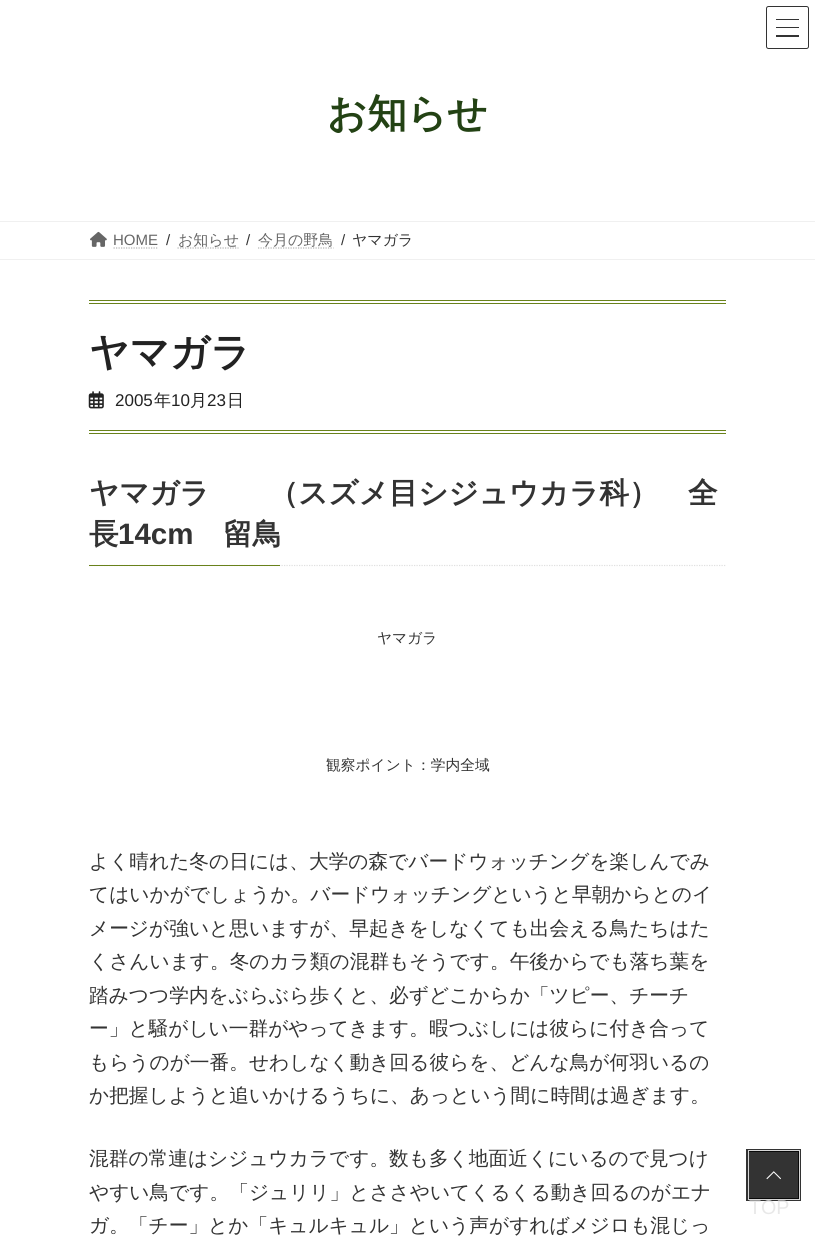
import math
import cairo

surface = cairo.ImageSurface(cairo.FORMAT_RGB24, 815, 1236)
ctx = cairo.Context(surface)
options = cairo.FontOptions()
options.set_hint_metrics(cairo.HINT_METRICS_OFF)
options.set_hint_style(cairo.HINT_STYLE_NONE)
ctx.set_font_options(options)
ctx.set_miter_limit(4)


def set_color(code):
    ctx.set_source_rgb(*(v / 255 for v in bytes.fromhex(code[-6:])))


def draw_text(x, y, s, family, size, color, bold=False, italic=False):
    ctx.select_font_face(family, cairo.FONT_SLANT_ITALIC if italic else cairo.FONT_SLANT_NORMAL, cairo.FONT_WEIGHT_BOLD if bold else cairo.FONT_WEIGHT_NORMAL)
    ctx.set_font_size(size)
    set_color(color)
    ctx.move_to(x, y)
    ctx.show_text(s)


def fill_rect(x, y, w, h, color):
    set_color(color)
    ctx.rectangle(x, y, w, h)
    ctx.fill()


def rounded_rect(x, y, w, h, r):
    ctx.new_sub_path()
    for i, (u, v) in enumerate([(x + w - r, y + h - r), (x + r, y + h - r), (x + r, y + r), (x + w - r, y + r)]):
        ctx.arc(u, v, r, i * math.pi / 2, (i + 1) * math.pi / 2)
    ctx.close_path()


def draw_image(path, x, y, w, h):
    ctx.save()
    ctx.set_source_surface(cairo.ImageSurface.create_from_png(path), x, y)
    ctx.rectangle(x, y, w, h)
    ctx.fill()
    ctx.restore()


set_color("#ffffff")
ctx.paint()
fill_rect(776, 19, 23, 1, "#333333")
fill_rect(776, 27, 23, 1, "#333333")
fill_rect(776, 35, 23, 2, "#333333")
rounded_rect(766.5, 6.5, 42, 42, 2)
ctx.set_line_width(1)
ctx.stroke()
draw_text(327, 127, "お知らせ", "WenQuanYi Zen Hei", 39.5, "#234214", bold=True)
fill_rect(0, 221, 815, 1, "#f0f0f0")
fill_rect(0, 259, 815, 1, "#f0f0f0")
draw_image("assets/img1.png", 90, 231, 17, 16)
draw_text(113, 245, "HOME", "Liberation Sans", 15, "#666666")
ctx.new_path()
ctx.move_to(113.5, 248)
ctx.line_to(158.5, 248)
set_color("#b3b3b3")
ctx.set_line_width(1.2)
ctx.set_dash([1.25, 1.25])
ctx.stroke()
draw_text(166, 245, "/", "Liberation Sans", 15, "#333333")
ctx.new_path()
ctx.move_to(177.5, 248)
ctx.line_to(238.5, 248)
set_color("#b3b3b3")
ctx.stroke()
draw_text(178, 245, "お知らせ", "WenQuanYi Zen Hei Medium", 15, "#666666")
draw_text(246, 245, "/", "Liberation Sans", 15, "#333333")
ctx.new_path()
ctx.move_to(258, 248)
ctx.line_to(333.5, 248)
set_color("#b3b3b3")
ctx.stroke()
draw_text(258, 245, "今月の野鳥", "WenQuanYi Zen Hei Medium", 15, "#666666")
draw_text(341, 245, "/", "Liberation Sans", 15, "#333333")
draw_text(352, 245, "ヤマガラ", "WenQuanYi Zen Hei Medium", 15, "#333333")
fill_rect(89, 300, 637, 1, "#69821b")
fill_rect(89, 303, 637, 1, "#69821b")
fill_rect(89, 430, 637, 1, "#69821b")
fill_rect(89, 433, 637, 1, "#69821b")
draw_text(89, 366, "ヤマガラ", "WenQuanYi Zen Hei", 39.5, "#222222", bold=True)
draw_image("assets/img2.png", 88, 391, 16, 18)
draw_text(115, 406, "2005", "Liberation Sans", 17, "#222222")
draw_text(154, 406, "年", "WenQuanYi Zen Hei Medium", 17, "#222222")
draw_text(171, 406, "10", "Liberation Sans", 17, "#222222")
draw_text(190, 406, "月", "WenQuanYi Zen Hei Medium", 17, "#222222")
draw_text(207, 406, "23", "Liberation Sans", 17, "#222222")
draw_text(227, 406, "日", "WenQuanYi Zen Hei Medium", 17, "#222222")
ctx.new_path()
ctx.move_to(89, 565.5)
ctx.line_to(726, 565.5)
set_color("#e0e0e0")
ctx.stroke()
draw_text(89, 503, "ヤマガラ　　（スズメ目シジュウカラ科）　全", "WenQuanYi Zen Hei", 29.5, "#333333", bold=True)
draw_text(89, 544, "長", "WenQuanYi Zen Hei", 29.5, "#333333", bold=True)
draw_text(118, 544, "14cm", "Liberation Sans", 29.5, "#333333", bold=True)
draw_text(223, 544, "留鳥", "WenQuanYi Zen Hei", 29.5, "#333333", bold=True)
fill_rect(89, 565, 191, 1, "#69821b")
draw_text(377, 643, "ヤマガラ", "WenQuanYi Zen Hei Medium", 14.75, "#333333")
draw_text(326, 770, "観察ポイント：学内全域", "WenQuanYi Zen Hei Medium", 14.75, "#333333")
draw_text(89, 868, "よく晴れた冬の日には、大学の森でバードウォッチングを楽しんでみ", "WenQuanYi Zen Hei Medium", 19.7, "#333333")
draw_text(89, 901, "てはいかがでしょうか。バードウォッチングというと早朝からとのイ", "WenQuanYi Zen Hei Medium", 19.7, "#333333")
draw_text(89, 935, "メージが強いと思いますが、早起きをしなくても出会える鳥たちはた", "WenQuanYi Zen Hei Medium", 19.7, "#333333")
draw_text(89, 968, "くさんいます。冬のカラ類の混群もそうです。午後からでも落ち葉を", "WenQuanYi Zen Hei Medium", 19.7, "#333333")
draw_text(89, 1002, "踏みつつ学内をぶらぶら歩くと、必ずどこからか「ツピー、チーチ", "WenQuanYi Zen Hei Medium", 19.7, "#333333")
draw_text(89, 1035, "ー」と騒がしい一群がやってきます。暇つぶしには彼らに付き合って", "WenQuanYi Zen Hei Medium", 19.7, "#333333")
draw_text(89, 1069, "もらうのが一番。せわしなく動き回る彼らを、どんな鳥が何羽いるの", "WenQuanYi Zen Hei Medium", 19.7, "#333333")
draw_text(89, 1102, "か把握しようと追いかけるうちに、あっという間に時間は過ぎます。", "WenQuanYi Zen Hei Medium", 19.7, "#333333")
draw_text(89, 1165, "混群の常連はシジュウカラです。数も多く地面近くにいるので見つけ", "WenQuanYi Zen Hei Medium", 19.7, "#333333")
draw_text(89, 1199, "やすい鳥です。「ジュリリ」とささやいてくるくる動き回るのがエナ", "WenQuanYi Zen Hei Medium", 19.7, "#333333")
draw_text(89, 1232, "ガ。「チー」とか「キュルキュル」という声がすればメジロも混じっ", "WenQuanYi Zen Hei Medium", 19.7, "#333333")
ctx.rectangle(747.5, 1150.5, 52, 49)
ctx.set_line_width(3)
ctx.set_dash([])
ctx.stroke()
ctx.rectangle(748.5, 1150.5, 51, 49)
set_color("#d6d6d6")
ctx.set_line_width(1)
ctx.stroke()
ctx.set_source_rgba(0, 0, 0, 0.8)
ctx.rectangle(749, 1151, 50, 48)
ctx.fill()
draw_image("assets/img3.png", 766, 1171, 15, 9)
draw_text(749, 1214, "TOP", "Liberation Sans", 19.7, "#e8e8e8")
surface.write_to_png("output.png")
